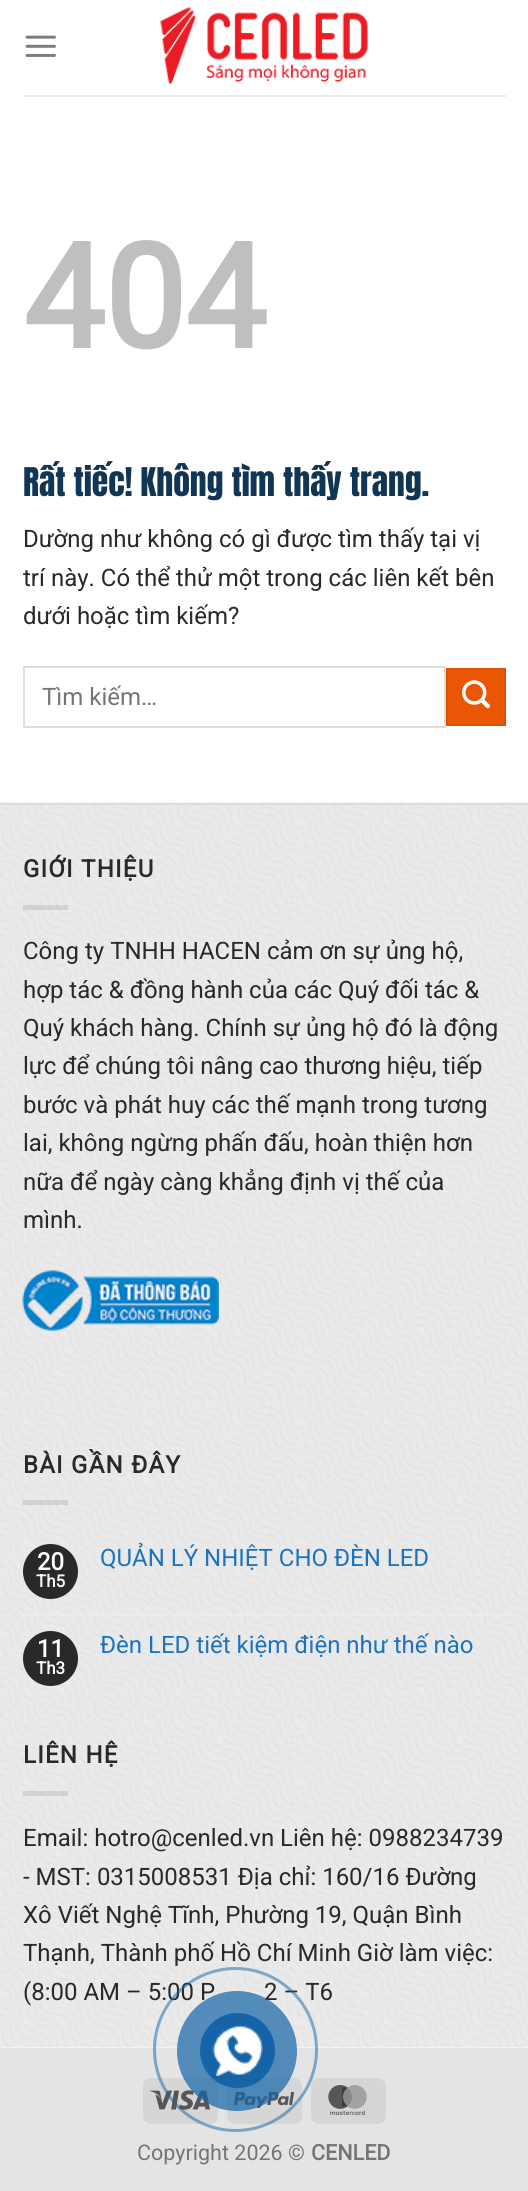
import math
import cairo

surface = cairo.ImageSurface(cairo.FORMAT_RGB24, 528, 2191)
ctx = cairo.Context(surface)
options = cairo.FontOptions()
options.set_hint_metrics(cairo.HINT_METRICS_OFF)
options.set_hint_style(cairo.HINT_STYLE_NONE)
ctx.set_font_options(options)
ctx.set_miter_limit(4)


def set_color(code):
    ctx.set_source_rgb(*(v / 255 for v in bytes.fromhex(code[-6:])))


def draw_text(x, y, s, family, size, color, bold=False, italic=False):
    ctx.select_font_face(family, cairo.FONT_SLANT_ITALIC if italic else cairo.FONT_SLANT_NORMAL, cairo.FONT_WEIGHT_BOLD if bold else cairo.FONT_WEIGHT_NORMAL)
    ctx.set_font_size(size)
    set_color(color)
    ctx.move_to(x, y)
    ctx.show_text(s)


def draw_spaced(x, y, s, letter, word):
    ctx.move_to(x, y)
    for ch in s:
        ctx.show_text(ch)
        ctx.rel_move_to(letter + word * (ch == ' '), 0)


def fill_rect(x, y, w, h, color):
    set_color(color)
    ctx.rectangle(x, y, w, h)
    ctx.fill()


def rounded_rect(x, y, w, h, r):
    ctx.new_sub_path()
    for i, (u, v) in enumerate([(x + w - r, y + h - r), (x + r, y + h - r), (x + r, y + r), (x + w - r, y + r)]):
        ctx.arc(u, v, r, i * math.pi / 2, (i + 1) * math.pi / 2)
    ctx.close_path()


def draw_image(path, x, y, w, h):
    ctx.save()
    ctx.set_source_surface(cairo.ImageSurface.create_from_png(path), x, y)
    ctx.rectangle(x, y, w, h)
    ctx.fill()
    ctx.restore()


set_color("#ffffff")
ctx.paint()
draw_image("assets/img1.png", 25, 35, 31, 22)
draw_image("assets/img2.png", 160, 7, 208, 77)
fill_rect(23, 95, 483, 2, "#eaeaea")
draw_text(23, 348, "404", "Roboto", 144, "#bfbfbf", bold=True)
draw_text(23, 496, "Rất tiếc! Không tìm thấy trang.", "Anton", 33.6, "#103555")
draw_text(23, 547, "Dường như không có gì được tìm thấy tại vị", "Roboto", 24, "#292929")
draw_text(23, 586, "trí này. Có thể thử một trong các liên kết bên", "Roboto", 24, "#292929")
draw_text(23, 624, "dưới hoặc tìm kiếm?", "Roboto", 24, "#292929")
ctx.rectangle(24, 667, 421, 60)
set_color("#dddddd")
ctx.stroke()
draw_text(42, 705, "Tìm kiếm…", "Roboto", 24, "#757575")
set_color("#ea5604")
ctx.rectangle(447, 669, 58, 56)
ctx.fill_preserve()
set_color("#de5204")
ctx.stroke()
draw_image("assets/img3.png", 462, 680, 28, 29)
draw_image("assets/img4.png", 0, 802, 528, 1246)
ctx.set_source_rgba(0, 0, 0, 0.05)
ctx.rectangle(0, 803, 528, 2)
ctx.fill()
ctx.select_font_face("Roboto", cairo.FONT_SLANT_NORMAL, cairo.FONT_WEIGHT_BOLD)
set_color("#292929")
draw_spaced(23, 877, "GIỚI THIỆU", 1.25, 0)
ctx.set_source_rgba(0, 0, 0, 0.1)
ctx.rectangle(23, 905, 45, 5)
ctx.fill()
draw_text(23, 959, "Công ty TNHH HACEN cảm ơn sự ủng hộ,", "Roboto", 24, "#292929")
draw_text(23, 998, "hợp tác & đồng hành của các Quý đối tác &", "Roboto", 24, "#292929")
draw_text(23, 1036, "Quý khách hàng. Chính sự ủng hộ đó là động", "Roboto", 24, "#292929")
draw_text(23, 1074, "lực để chúng tôi nâng cao thương hiệu, tiếp", "Roboto", 24, "#292929")
draw_text(23, 1113, "bước và phát huy các thế mạnh trong tương", "Roboto", 24, "#292929")
draw_text(23, 1151, "lai, không ngừng phấn đấu, hoàn thiện hơn", "Roboto", 24, "#292929")
draw_text(23, 1190, "nữa để ngày càng khẳng định vị thế của", "Roboto", 24, "#292929")
draw_text(23, 1228, "mình.", "Roboto", 24, "#292929")
draw_image("assets/img5.png", 22, 1270, 197, 61)
ctx.select_font_face("Roboto", cairo.FONT_SLANT_NORMAL, cairo.FONT_WEIGHT_BOLD)
draw_spaced(23, 1473, "BÀI GẦN ĐÂY", 1.25, 0)
ctx.set_source_rgba(0, 0, 0, 0.1)
ctx.rectangle(23, 1500, 45, 5)
ctx.fill()
set_color("#292929")
ctx.arc(50.5, 1571.5, 27.5, 0, 2 * math.pi)
ctx.fill()
draw_text(37, 1570, "20", "Roboto", 24, "#ffffff", bold=True)
draw_text(36, 1587, "Th5", "Roboto", 17, "#ffffff", bold=True)
draw_text(100, 1566, "QUẢN LÝ NHIỆT CHO ĐÈN LED", "Roboto", 24, "#1e73be")
fill_rect(23, 1614, 483, 2, "#ececec")
set_color("#292929")
ctx.new_path()
ctx.arc(50.5, 1658.5, 27.5, 0, 2 * math.pi)
ctx.fill()
draw_text(37, 1657, "11", "Roboto", 24, "#ffffff", bold=True)
draw_text(36, 1674, "Th3", "Roboto", 17, "#ffffff", bold=True)
draw_text(100, 1653, "Đèn LED tiết kiệm điện như thế nào", "Roboto", 24, "#1e73be")
ctx.select_font_face("Roboto", cairo.FONT_SLANT_NORMAL, cairo.FONT_WEIGHT_BOLD)
set_color("#292929")
draw_spaced(23, 1763, "LIÊN HỆ", 1.25, 0)
ctx.set_source_rgba(0, 0, 0, 0.1)
ctx.rectangle(23, 1791, 45, 5)
ctx.fill()
draw_text(23, 1846, "Email: hotro@cenled.vn Liên hệ: 0988234739", "Roboto", 24, "#292929")
draw_text(23, 1885, "- MST: 0315008531 Địa chỉ: 160/16 Đường", "Roboto", 24, "#292929")
draw_text(23, 1923, "Xô Viết Nghệ Tĩnh, Phường 19, Quận Bình", "Roboto", 24, "#292929")
draw_text(23, 1961, "Thạnh, Thành phố Hồ Chí Minh Giờ làm việc:", "Roboto", 24, "#292929")
draw_text(23, 2000, "(8:00 AM – 5:00 P", "Roboto", 24, "#292929")
draw_text(264, 2000, "2 – T6", "Roboto", 24, "#292929")
fill_rect(0, 2048, 528, 143, "#e4e4e4")
set_color("#d6d6d6")
rounded_rect(143, 2078, 75, 46, 8)
ctx.fill()
draw_image("assets/img6.png", 150, 2090, 60, 20)
rounded_rect(227, 2078, 75, 46, 8)
ctx.fill()
draw_image("assets/img7.png", 234, 2092, 60, 16)
rounded_rect(311, 2078, 75, 46, 8)
ctx.fill()
draw_image("assets/img8.png", 328, 2085, 39, 30)
draw_text(137, 2160, "Copyright 2026 ©", "Roboto", 21.5, "#757575")
draw_text(311, 2160, "CENLED", "Roboto", 21.5, "#757575", bold=True)
ctx.new_path()
ctx.arc(235.5, 2049.5, 81, 0, 2 * math.pi)
ctx.set_source_rgba(0.082, 0.392, 0.655, 0.5)
ctx.set_line_width(3)
ctx.stroke()
ctx.set_source_rgba(0.082, 0.392, 0.655, 0.7)
ctx.arc(237, 2051, 60, 0, 2 * math.pi)
ctx.fill()
set_color("#1564a7")
ctx.arc(237.5, 2050.5, 37.5, 0, 2 * math.pi)
ctx.fill()
draw_image("assets/img9.png", 212, 2025, 51, 51)
surface.write_to_png("output.png")
